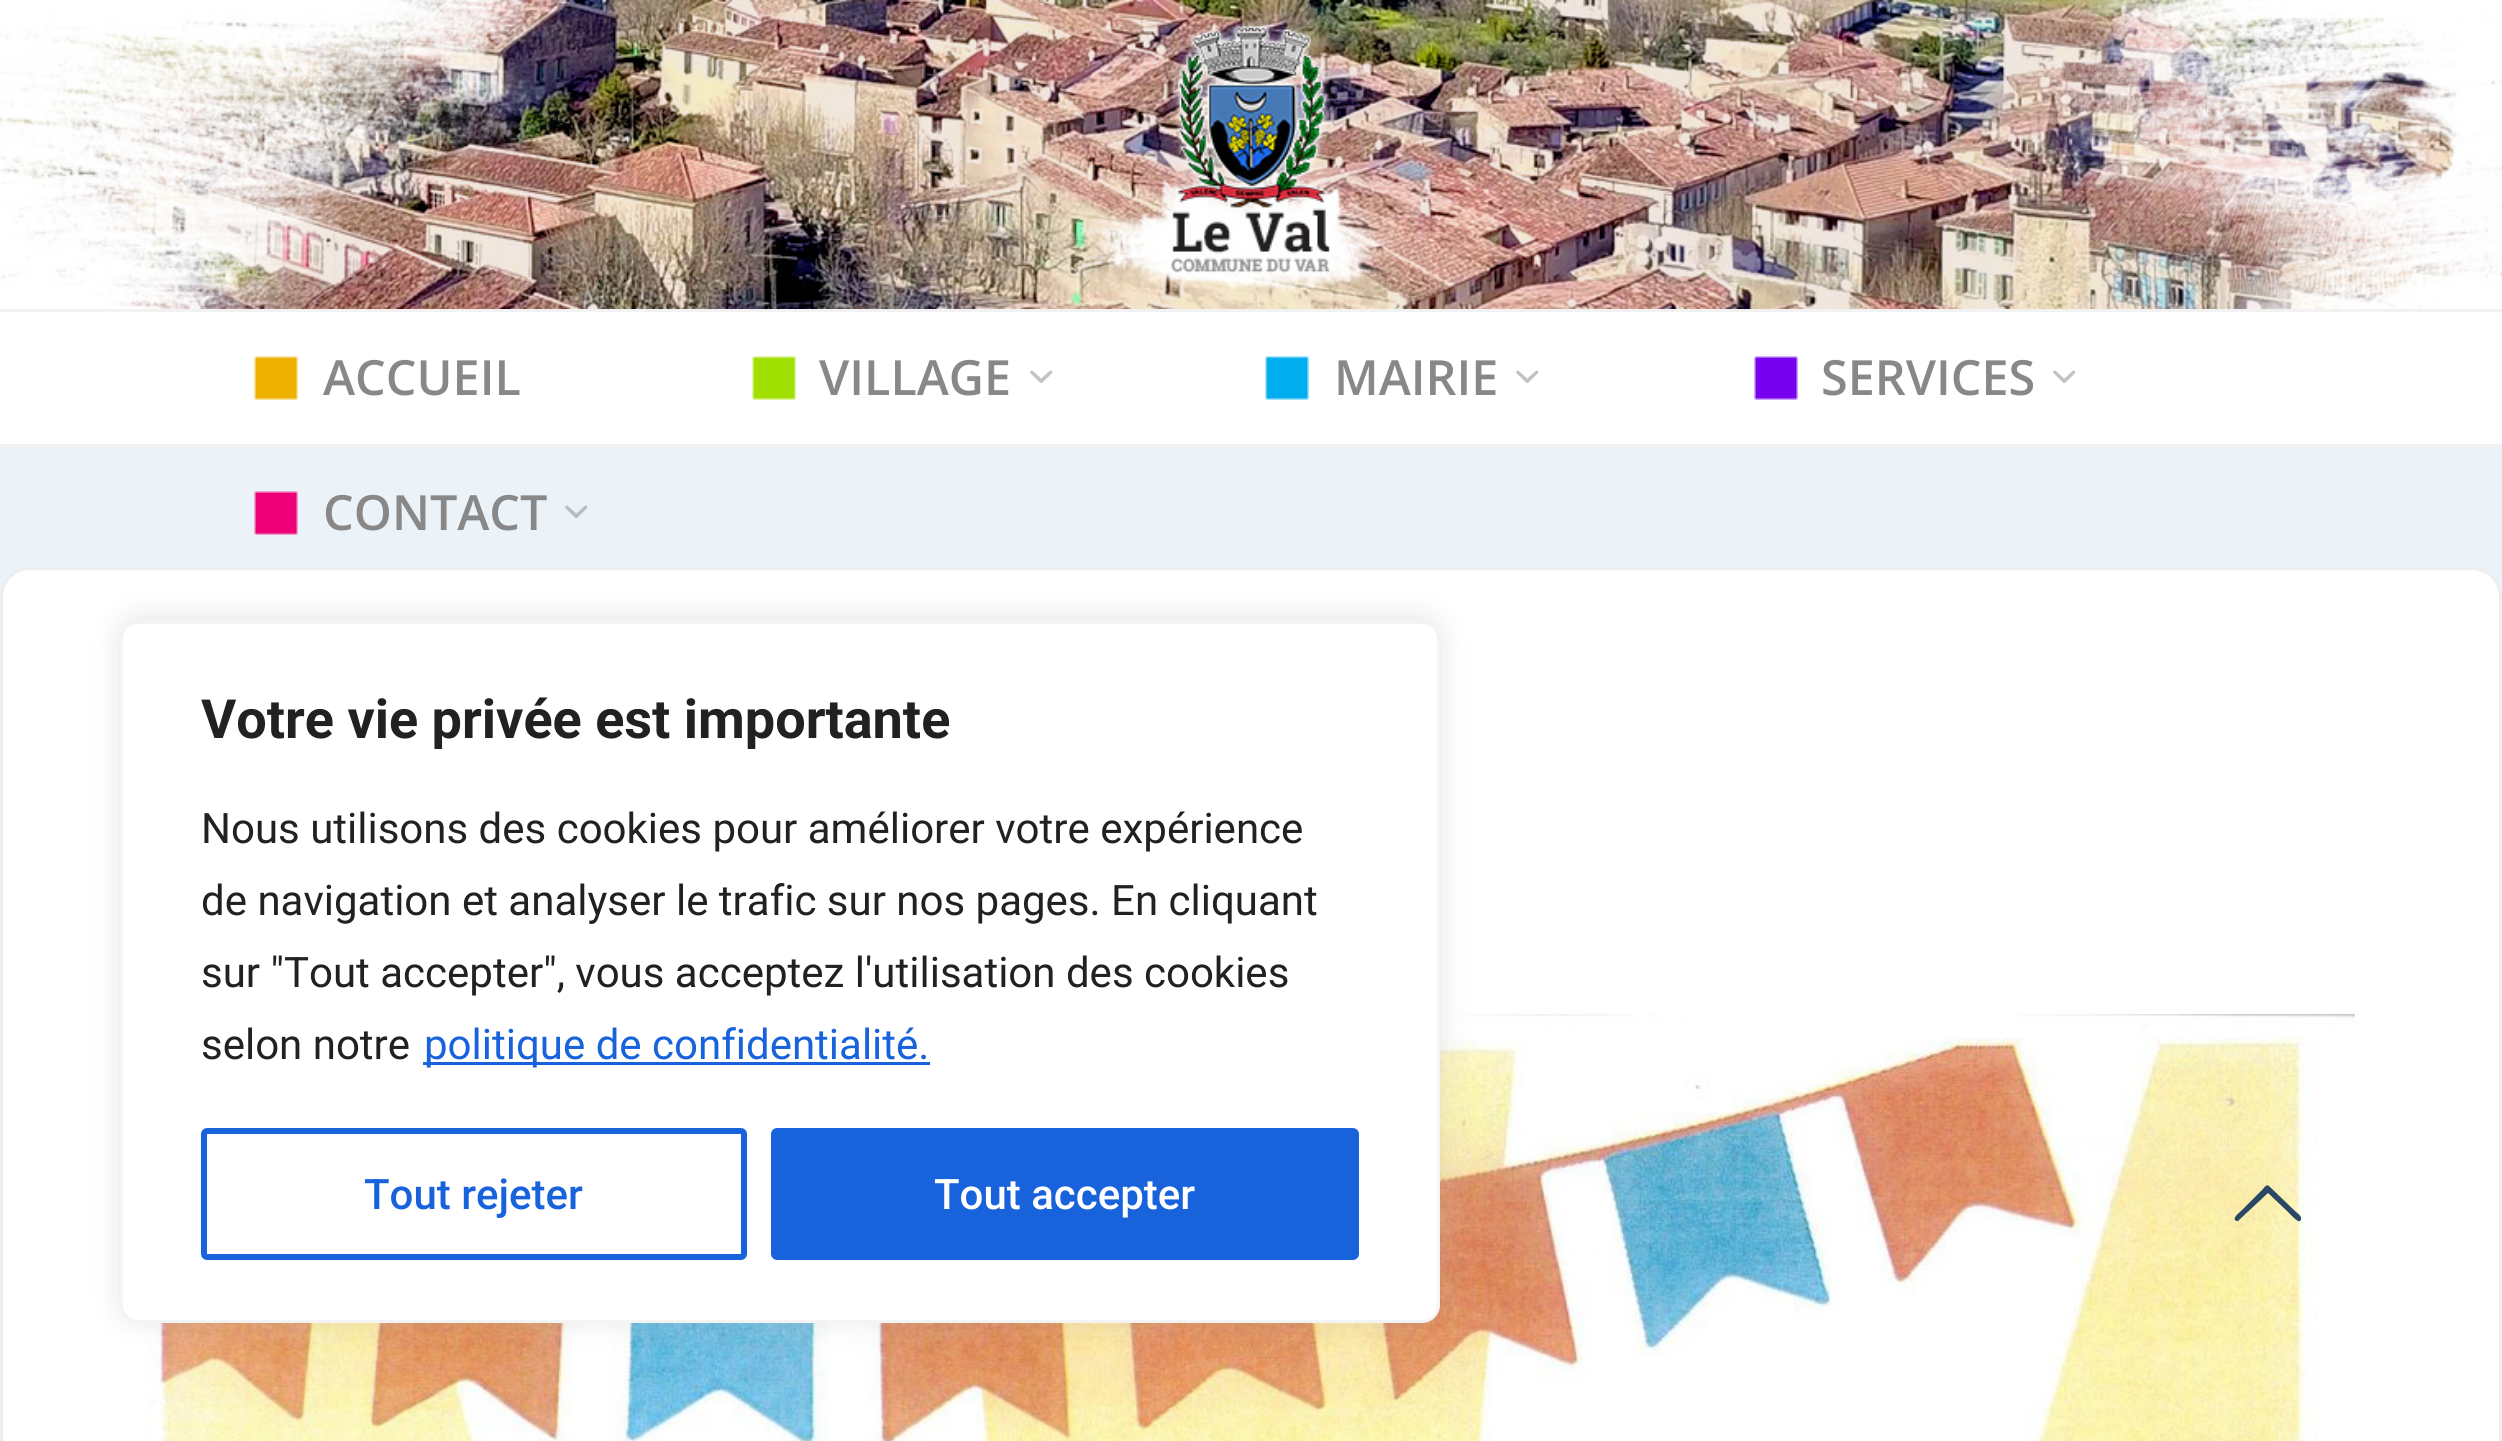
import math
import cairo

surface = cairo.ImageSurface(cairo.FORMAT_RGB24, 2502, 1441)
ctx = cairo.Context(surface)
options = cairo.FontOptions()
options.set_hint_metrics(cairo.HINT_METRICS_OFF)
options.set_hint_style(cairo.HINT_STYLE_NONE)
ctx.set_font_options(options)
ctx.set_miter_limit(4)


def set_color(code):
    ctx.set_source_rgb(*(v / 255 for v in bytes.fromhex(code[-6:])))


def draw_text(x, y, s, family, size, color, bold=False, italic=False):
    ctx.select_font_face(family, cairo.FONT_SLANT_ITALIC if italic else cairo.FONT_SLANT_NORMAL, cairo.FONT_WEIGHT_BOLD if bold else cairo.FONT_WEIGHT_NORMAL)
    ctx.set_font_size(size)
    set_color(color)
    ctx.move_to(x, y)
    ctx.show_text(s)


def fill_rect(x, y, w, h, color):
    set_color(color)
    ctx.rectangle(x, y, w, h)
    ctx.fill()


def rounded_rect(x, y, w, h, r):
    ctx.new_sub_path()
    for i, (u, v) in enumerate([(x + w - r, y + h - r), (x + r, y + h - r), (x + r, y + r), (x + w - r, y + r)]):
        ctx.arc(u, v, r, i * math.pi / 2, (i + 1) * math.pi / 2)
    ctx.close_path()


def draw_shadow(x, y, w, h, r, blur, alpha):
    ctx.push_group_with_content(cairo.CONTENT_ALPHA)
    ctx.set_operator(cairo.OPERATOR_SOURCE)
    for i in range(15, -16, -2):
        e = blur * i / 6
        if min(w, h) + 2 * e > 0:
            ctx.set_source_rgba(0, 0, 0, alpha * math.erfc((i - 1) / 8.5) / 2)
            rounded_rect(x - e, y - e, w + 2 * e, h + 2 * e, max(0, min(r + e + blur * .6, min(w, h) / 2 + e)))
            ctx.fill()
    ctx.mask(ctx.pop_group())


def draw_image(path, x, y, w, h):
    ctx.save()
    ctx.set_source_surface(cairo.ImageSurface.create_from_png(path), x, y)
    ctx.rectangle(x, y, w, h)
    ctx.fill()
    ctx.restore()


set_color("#ebf3f9")
ctx.paint()
draw_image("assets/img1.png", 0, 0, 2502, 309)
fill_rect(0, 312, 2502, 132, "#ffffff")
fill_rect(0, 309, 2502, 3, "#f2f2f2")
fill_rect(0, 444, 2502, 3, "#f2f2f2")
draw_image("assets/img2.png", 254, 356, 44, 44)
draw_text(323, 395, "ACCUEIL", "Open Sans SemiBold", 48.5, "#888888")
draw_image("assets/img3.png", 752, 356, 44, 44)
draw_text(819, 395, "VILLAGE", "Open Sans SemiBold", 48.5, "#888888")
draw_image("assets/img4.png", 1030, 370, 23, 13)
draw_image("assets/img5.png", 1265, 356, 44, 44)
draw_text(1334, 395, "MAIRIE", "Open Sans SemiBold", 48.5, "#888888")
draw_image("assets/img4.png", 1516, 370, 23, 13)
draw_image("assets/img6.png", 1754, 356, 44, 44)
draw_text(1821, 395, "SERVICES", "Open Sans SemiBold", 48.5, "#888888")
draw_image("assets/img4.png", 2053, 370, 23, 13)
draw_image("assets/img7.png", 254, 491, 44, 44)
draw_text(323, 530, "CONTACT", "Open Sans SemiBold", 48.5, "#888888")
draw_image("assets/img8.png", 565, 505, 23, 13)
set_color("#ffffff")
rounded_rect(1.5, 568.5, 2499, 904, 28.5)
ctx.fill_preserve()
set_color("#eeeeee")
ctx.set_line_width(3)
ctx.stroke()
draw_image("assets/img9.png", 147, 1014, 2208, 427)
set_color("#acabab")
draw_shadow(120, 618, 1320, 702, 18, 15, 0.3)
set_color("#ffffff")
rounded_rect(121.5, 622.5, 1317, 699, 16.5)
ctx.fill_preserve()
set_color("#f4f4f4")
ctx.stroke()
draw_text(201, 738, "Votre vie privée est importante", "Roboto", 54, "#212121", bold=True)
draw_text(201, 843, "Nous utilisons des cookies pour améliorer votre expérience", "Roboto", 42, "#212121")
draw_text(201, 915, "de navigation et analyser le trafic sur nos pages. En cliquant", "Roboto", 42, "#212121")
draw_text(201, 987, "sur \"Tout accepter\", vous acceptez l'utilisation des cookies", "Roboto", 42, "#212121")
draw_text(201, 1059, "selon notre", "Roboto", 42, "#212121")
fill_rect(423, 1062, 507, 3, "#1863dc")
draw_text(424, 1059, "politique de confidentialité.", "Roboto", 42, "#1863dc")
rounded_rect(204, 1131, 540, 126, 3)
ctx.set_line_width(6)
ctx.stroke()
draw_text(364, 1209, "Tout rejeter", "Roboto Medium", 42, "#1863dc")
rounded_rect(774, 1131, 582, 126, 3)
ctx.fill_preserve()
ctx.stroke()
draw_text(934, 1209, "Tout accepter", "Roboto Medium", 42, "#ffffff")
set_color("#2a4866")
ctx.new_path()
ctx.move_to(2239, 1220)
ctx.curve_to(2238, 1222, 2236, 1221, 2235, 1220)
ctx.curve_to(2233, 1217, 2240, 1212, 2240, 1212)
ctx.line_to(2261, 1191)
ctx.curve_to(2262, 1191, 2266, 1183, 2269, 1186)
ctx.line_to(2296, 1212)
ctx.curve_to(2296, 1212, 2302, 1216, 2301, 1219)
ctx.curve_to(2300, 1225, 2294, 1218, 2287, 1211)
ctx.line_to(2268, 1193)
ctx.close_path()
ctx.fill()
surface.write_to_png("output.png")
